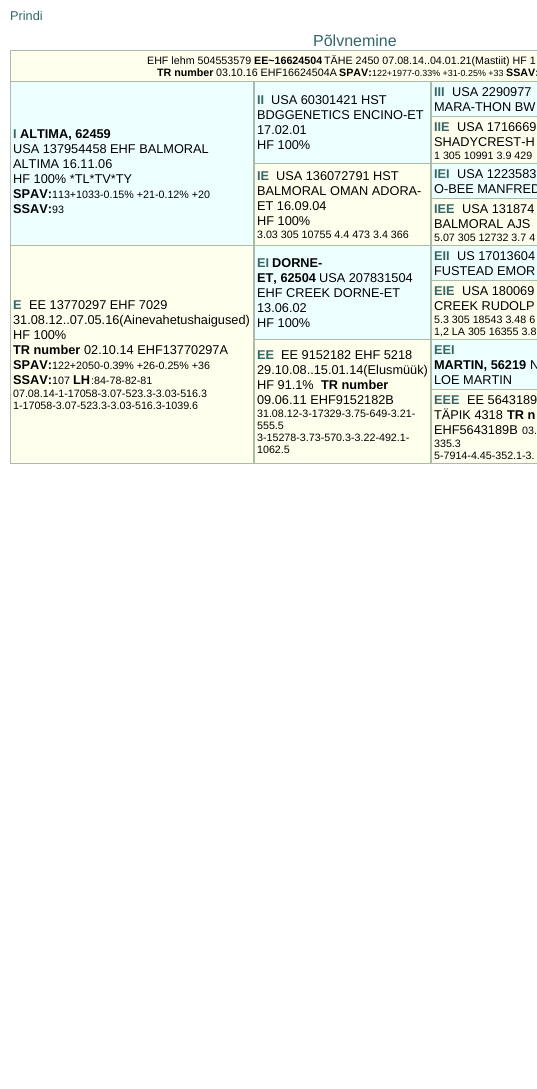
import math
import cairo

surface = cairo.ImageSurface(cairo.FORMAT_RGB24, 537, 1089)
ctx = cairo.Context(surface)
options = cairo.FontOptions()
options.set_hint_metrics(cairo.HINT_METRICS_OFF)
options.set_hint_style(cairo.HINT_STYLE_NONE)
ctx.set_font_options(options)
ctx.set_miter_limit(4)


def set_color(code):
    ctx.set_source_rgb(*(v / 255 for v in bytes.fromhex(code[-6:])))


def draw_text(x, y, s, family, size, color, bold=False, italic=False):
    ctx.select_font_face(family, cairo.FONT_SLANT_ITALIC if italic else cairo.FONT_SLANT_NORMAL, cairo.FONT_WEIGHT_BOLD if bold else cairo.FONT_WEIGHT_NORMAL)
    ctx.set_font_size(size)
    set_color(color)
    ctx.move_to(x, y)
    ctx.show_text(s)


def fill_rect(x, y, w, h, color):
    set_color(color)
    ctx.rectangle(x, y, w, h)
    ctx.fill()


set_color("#ffffff")
ctx.paint()
draw_text(10, 20, "Prindi", "Liberation Sans", 12.75, "#336666")
draw_text(313, 46, "Põlvnemine", "Liberation Sans", 16, "#336666")
set_color("#ffffee")
ctx.rectangle(10.5, 50.5, 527, 31)
ctx.fill_preserve()
set_color("#aabbaa")
ctx.set_line_width(1)
ctx.stroke()
draw_text(147, 64, "EHF lehm 504553579", "Liberation Sans", 10.7, "#000000")
draw_text(254, 64, "EE~16624504", "Liberation Sans", 10.7, "#000000", bold=True)
draw_text(324, 64, "TÄHE 2450 07.08.14..04.01.21(Mastiit) HF 1", "Liberation Sans", 10.7, "#000000")
draw_text(157, 76, "TR number", "Liberation Sans", 10.7, "#000000", bold=True)
draw_text(216, 76, "03.10.16 EHF16624504A", "Liberation Sans", 10.7, "#000000")
draw_text(339, 76, "SPAV:", "Liberation Sans", 10.7, "#000000", bold=True)
draw_text(372, 76, "122+1977-0.33% +31-0.25% +33", "Liberation Sans", 8.9, "#000000")
draw_text(506, 76, "SSAV:", "Liberation Sans", 10.7, "#000000", bold=True)
fill_rect(255, 82, 175, 81, "#eeffff")
fill_rect(430, 82, 1, 382, "#aabbaa")
fill_rect(254, 163, 283, 1, "#aabbaa")
fill_rect(254, 82, 1, 82, "#aabbaa")
draw_text(257, 104, "II", "Liberation Sans", 12.75, "#336666", bold=True)
draw_text(271, 104, "USA 60301421 HST", "Liberation Sans", 12.75, "#000000")
draw_text(257, 119, "BDGGENETICS ENCINO-ET", "Liberation Sans", 12.75, "#000000")
draw_text(257, 134, "17.02.01", "Liberation Sans", 12.75, "#000000")
draw_text(257, 149, "HF 100%", "Liberation Sans", 12.75, "#000000")
fill_rect(432, 82, 105, 34, "#eeffff")
fill_rect(431, 116, 106, 1, "#aabbaa")
fill_rect(431, 82, 1, 82, "#aabbaa")
draw_text(434, 96, "III", "Liberation Sans", 12.75, "#336666", bold=True)
draw_text(452, 96, "USA 2290977", "Liberation Sans", 12.75, "#000000")
draw_text(434, 111, "MARA-THON BW", "Liberation Sans", 12.75, "#000000")
fill_rect(11, 82, 242, 163, "#eeffff")
fill_rect(253, 82, 1, 382, "#aabbaa")
fill_rect(10, 245, 244, 1, "#aabbaa")
fill_rect(10, 82, 1, 164, "#aabbaa")
draw_text(13, 138, "I", "Liberation Sans", 12.75, "#336666", bold=True)
draw_text(20, 138, "ALTIMA, 62459", "Liberation Sans", 12.75, "#000000", bold=True)
draw_text(13, 153, "USA 137954458 EHF BALMORAL", "Liberation Sans", 12.75, "#000000")
draw_text(13, 168, "ALTIMA 16.11.06", "Liberation Sans", 12.75, "#000000")
draw_text(13, 183, "HF 100% *TL*TV*TY", "Liberation Sans", 12.75, "#000000")
draw_text(13, 198, "SPAV:", "Liberation Sans", 12.75, "#000000", bold=True)
draw_text(52, 198, "113+1033-0.15% +21-0.12% +20", "Liberation Sans", 10.7, "#000000")
draw_text(13, 213, "SSAV:", "Liberation Sans", 12.75, "#000000", bold=True)
draw_text(52, 213, "93", "Liberation Sans", 10.7, "#000000")
fill_rect(432, 117, 105, 46, "#ffffee")
draw_text(434, 131, "IIE", "Liberation Sans", 12.75, "#336666", bold=True)
draw_text(457, 131, "USA 1716669", "Liberation Sans", 12.75, "#000000")
draw_text(434, 146, "SHADYCREST-H", "Liberation Sans", 12.75, "#000000")
draw_text(434, 159, "1 305 10991 3.9 429", "Liberation Sans", 10.7, "#000000")
fill_rect(255, 164, 175, 81, "#ffffee")
fill_rect(254, 245, 283, 1, "#aabbaa")
fill_rect(254, 164, 1, 82, "#aabbaa")
draw_text(257, 180, "IE", "Liberation Sans", 12.75, "#336666", bold=True)
draw_text(276, 180, "USA 136072791 HST", "Liberation Sans", 12.75, "#000000")
draw_text(257, 195, "BALMORAL OMAN ADORA-", "Liberation Sans", 12.75, "#000000")
draw_text(257, 210, "ET 16.09.04", "Liberation Sans", 12.75, "#000000")
draw_text(257, 225, "HF 100%", "Liberation Sans", 12.75, "#000000")
draw_text(257, 238, "3.03 305 10755 4.4 473 3.4 366", "Liberation Sans", 10.7, "#000000")
fill_rect(432, 164, 105, 34, "#eeffff")
fill_rect(431, 198, 106, 1, "#aabbaa")
fill_rect(431, 164, 1, 82, "#aabbaa")
draw_text(434, 178, "IEI", "Liberation Sans", 12.75, "#336666", bold=True)
draw_text(457, 178, "USA 1223583", "Liberation Sans", 12.75, "#000000")
draw_text(434, 193, "O-BEE MANFRED", "Liberation Sans", 12.75, "#000000")
fill_rect(432, 199, 105, 46, "#ffffee")
draw_text(434, 213, "IEE", "Liberation Sans", 12.75, "#336666", bold=True)
draw_text(462, 213, "USA 131874", "Liberation Sans", 12.75, "#000000")
draw_text(434, 228, "BALMORAL AJS", "Liberation Sans", 12.75, "#000000")
draw_text(434, 241, "5.07 305 12732 3.7 4", "Liberation Sans", 10.7, "#000000")
fill_rect(255, 246, 175, 93, "#eeffff")
fill_rect(254, 339, 283, 1, "#aabbaa")
fill_rect(10, 463, 527, 1, "#aabbaa")
fill_rect(254, 246, 1, 218, "#aabbaa")
draw_text(257, 267, "EI", "Liberation Sans", 12.75, "#336666", bold=True)
draw_text(272, 267, "DORNE-", "Liberation Sans", 12.75, "#000000", bold=True)
draw_text(257, 282, "ET, 62504", "Liberation Sans", 12.75, "#000000", bold=True)
draw_text(319, 282, "USA 207831504", "Liberation Sans", 12.75, "#000000")
draw_text(257, 297, "EHF CREEK DORNE-ET", "Liberation Sans", 12.75, "#000000")
draw_text(257, 312, "13.06.02", "Liberation Sans", 12.75, "#000000")
draw_text(257, 327, "HF 100%", "Liberation Sans", 12.75, "#000000")
fill_rect(432, 246, 105, 34, "#eeffff")
fill_rect(431, 280, 106, 1, "#aabbaa")
fill_rect(431, 246, 1, 94, "#aabbaa")
draw_text(434, 260, "EII", "Liberation Sans", 12.75, "#336666", bold=True)
draw_text(457, 260, "US 17013604", "Liberation Sans", 12.75, "#000000")
draw_text(434, 275, "FUSTEAD EMOR", "Liberation Sans", 12.75, "#000000")
fill_rect(11, 246, 242, 217, "#ffffee")
fill_rect(10, 246, 1, 218, "#aabbaa")
draw_text(13, 309, "E", "Liberation Sans", 12.75, "#336666", bold=True)
draw_text(29, 309, "EE 13770297 EHF 7029", "Liberation Sans", 12.75, "#000000")
draw_text(13, 324, "31.08.12..07.05.16(Ainevahetushaigused)", "Liberation Sans", 12.75, "#000000")
draw_text(13, 339, "HF 100%", "Liberation Sans", 12.75, "#000000")
draw_text(13, 354, "TR number", "Liberation Sans", 12.75, "#000000", bold=True)
draw_text(84, 354, "02.10.14 EHF13770297A", "Liberation Sans", 12.75, "#000000")
draw_text(13, 369, "SPAV:", "Liberation Sans", 12.75, "#000000", bold=True)
draw_text(52, 369, "122+2050-0.39% +26-0.25% +36", "Liberation Sans", 10.7, "#000000")
draw_text(13, 384, "SSAV:", "Liberation Sans", 12.75, "#000000", bold=True)
draw_text(52, 384, "107", "Liberation Sans", 10.7, "#000000")
draw_text(73, 384, "LH", "Liberation Sans", 12.75, "#000000", bold=True)
draw_text(91, 384, ":84-78-82-81", "Liberation Sans", 10.7, "#000000")
draw_text(13, 397, "07.08.14-1-17058-3.07-523.3-3.03-516.3", "Liberation Sans", 10.7, "#000000")
draw_text(13, 409, "1-17058-3.07-523.3-3.03-516.3-1039.6", "Liberation Sans", 10.7, "#000000")
fill_rect(432, 281, 105, 58, "#ffffee")
draw_text(434, 295, "EIE", "Liberation Sans", 12.75, "#336666", bold=True)
draw_text(462, 295, "USA 180069", "Liberation Sans", 12.75, "#000000")
draw_text(434, 310, "CREEK RUDOLP", "Liberation Sans", 12.75, "#000000")
draw_text(434, 323, "5.3 305 18543 3.48 6", "Liberation Sans", 10.7, "#000000")
draw_text(434, 335, "1,2 LA 305 16355 3.8", "Liberation Sans", 10.7, "#000000")
fill_rect(255, 340, 175, 123, "#ffffee")
draw_text(257, 359, "EE", "Liberation Sans", 12.75, "#336666", bold=True)
draw_text(281, 359, "EE 9152182 EHF 5218", "Liberation Sans", 12.75, "#000000")
draw_text(257, 374, "29.10.08..15.01.14(Elusmüük)", "Liberation Sans", 12.75, "#000000")
draw_text(257, 389, "HF 91.1%", "Liberation Sans", 12.75, "#000000")
draw_text(321, 389, "TR number", "Liberation Sans", 12.75, "#000000", bold=True)
draw_text(257, 404, "09.06.11 EHF9152182B", "Liberation Sans", 12.75, "#000000")
draw_text(257, 417, "31.08.12-3-17329-3.75-649-3.21-", "Liberation Sans", 10.7, "#000000")
draw_text(257, 429, "555.5", "Liberation Sans", 10.7, "#000000")
draw_text(257, 441, "3-15278-3.73-570.3-3.22-492.1-", "Liberation Sans", 10.7, "#000000")
draw_text(257, 453, "1062.5", "Liberation Sans", 10.7, "#000000")
fill_rect(432, 340, 105, 49, "#eeffff")
fill_rect(431, 389, 106, 1, "#aabbaa")
fill_rect(431, 340, 1, 124, "#aabbaa")
draw_text(434, 354, "EEI", "Liberation Sans", 12.75, "#336666", bold=True)
draw_text(434, 369, "MARTIN, 56219", "Liberation Sans", 12.75, "#000000", bold=True)
draw_text(530, 369, "N", "Liberation Sans", 12.75, "#000000")
draw_text(434, 384, "LOE MARTIN", "Liberation Sans", 12.75, "#000000")
fill_rect(432, 390, 105, 73, "#ffffee")
draw_text(434, 404, "EEE", "Liberation Sans", 12.75, "#336666", bold=True)
draw_text(467, 404, "EE 5643189", "Liberation Sans", 12.75, "#000000")
draw_text(434, 419, "TÄPIK 4318", "Liberation Sans", 12.75, "#000000")
draw_text(507, 419, "TR n", "Liberation Sans", 12.75, "#000000", bold=True)
draw_text(434, 434, "EHF5643189B", "Liberation Sans", 12.75, "#000000")
draw_text(522, 434, "03.", "Liberation Sans", 10.7, "#000000")
draw_text(434, 447, "335.3", "Liberation Sans", 10.7, "#000000")
draw_text(434, 459, "5-7914-4.45-352.1-3.", "Liberation Sans", 10.7, "#000000")
surface.write_to_png("output.png")
